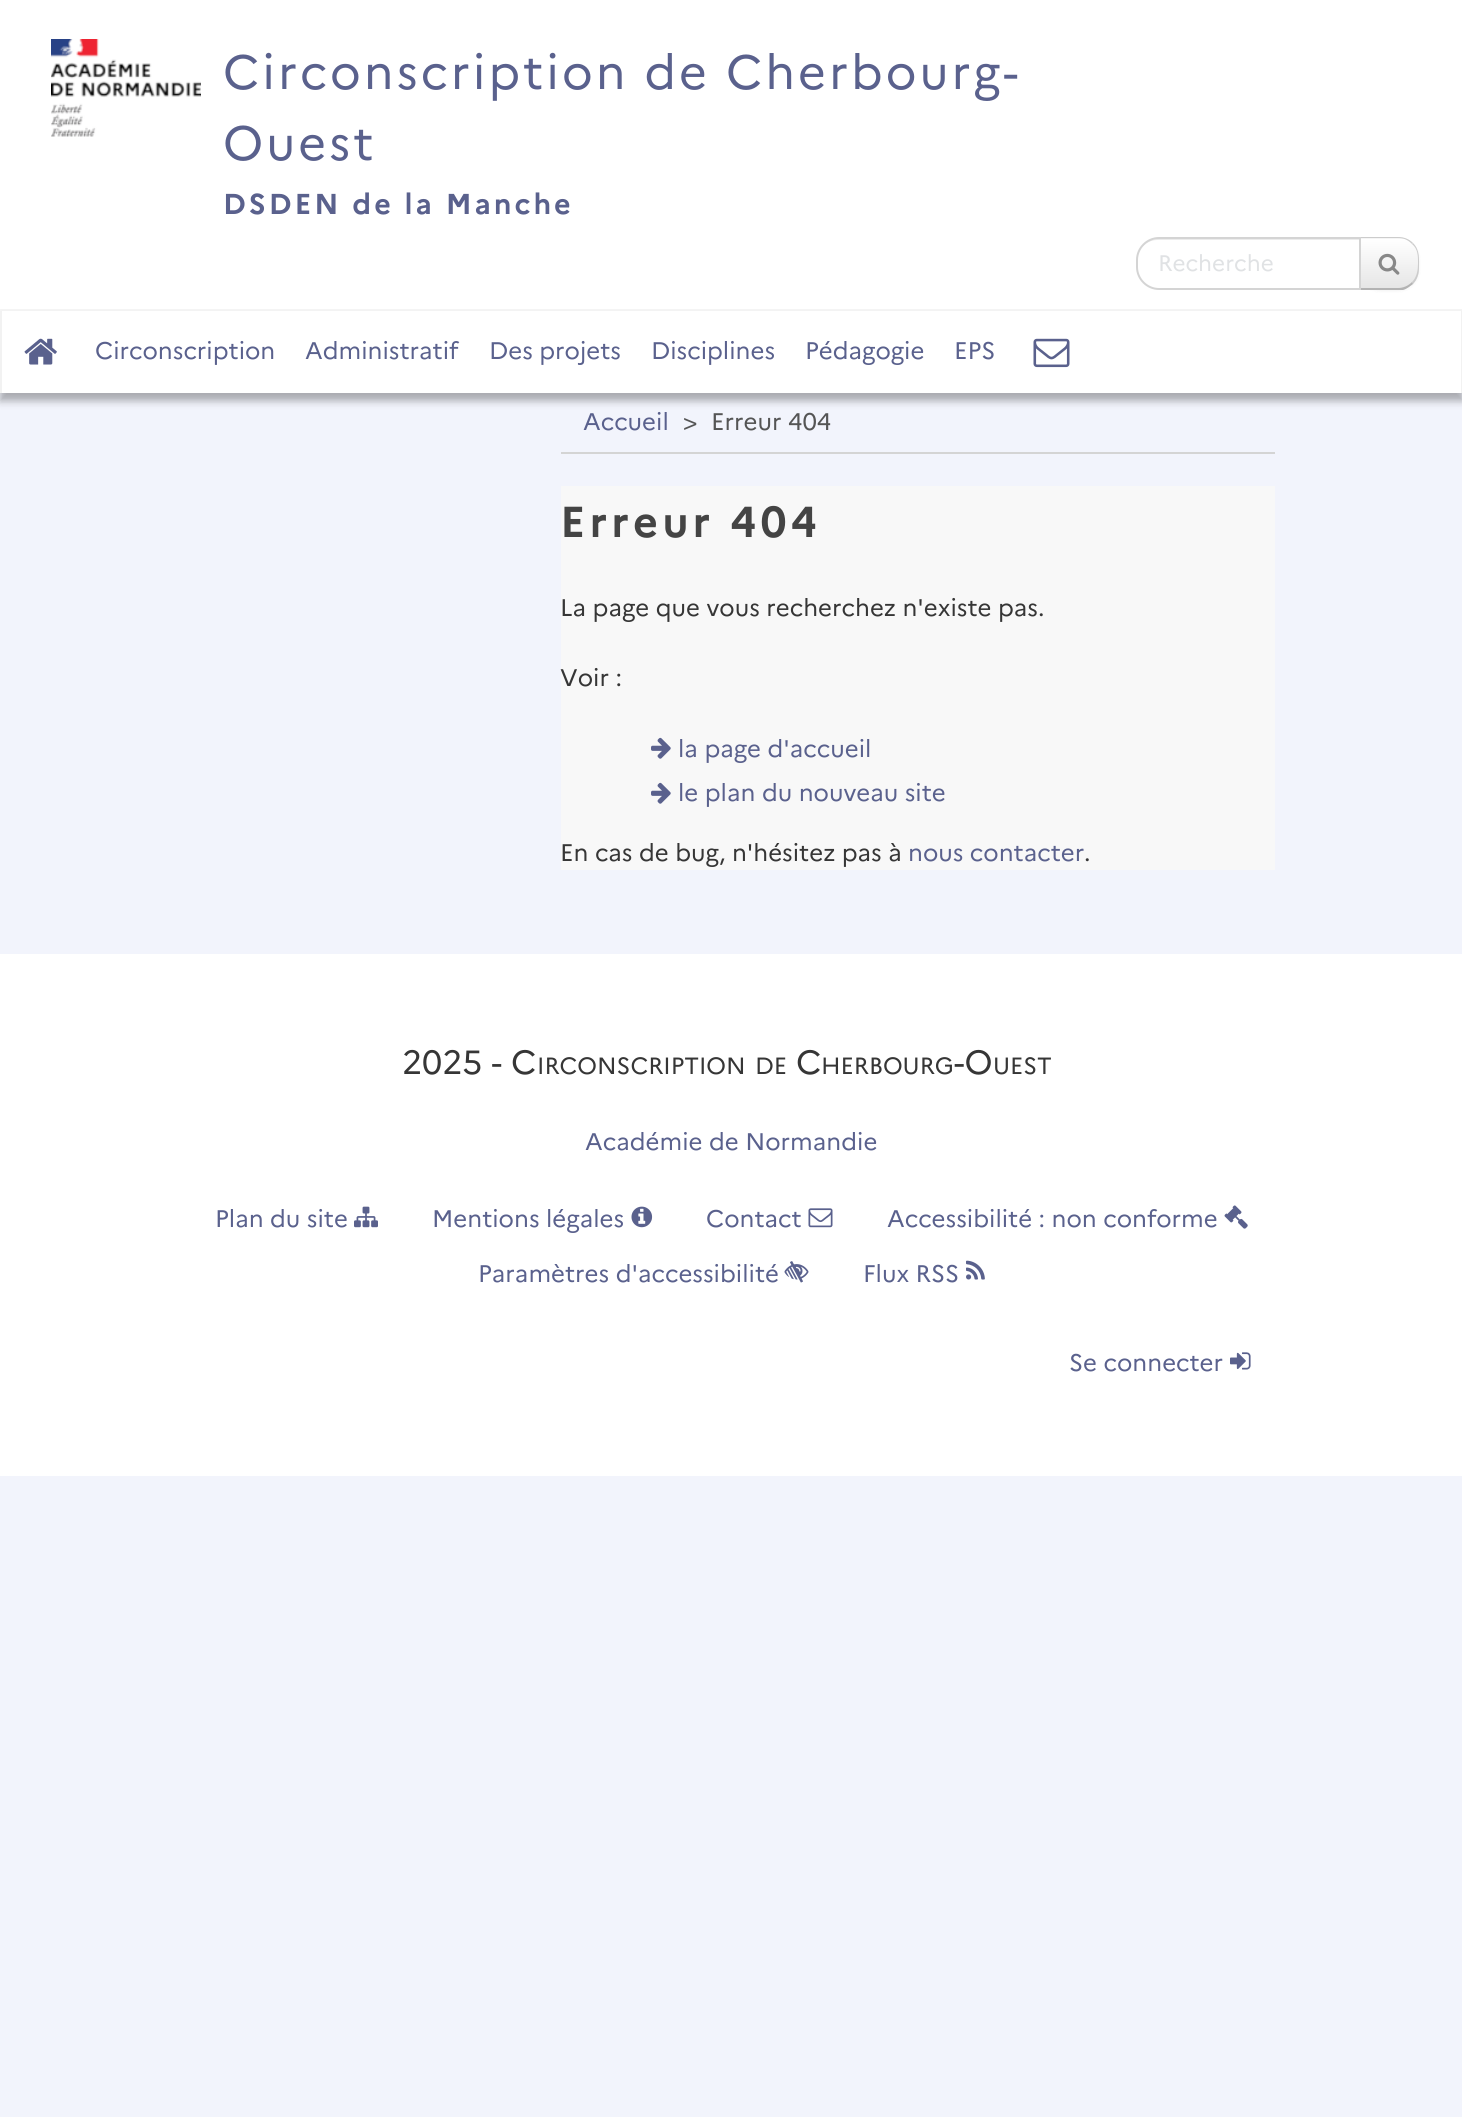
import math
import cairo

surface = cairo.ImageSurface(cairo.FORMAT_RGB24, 1462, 2117)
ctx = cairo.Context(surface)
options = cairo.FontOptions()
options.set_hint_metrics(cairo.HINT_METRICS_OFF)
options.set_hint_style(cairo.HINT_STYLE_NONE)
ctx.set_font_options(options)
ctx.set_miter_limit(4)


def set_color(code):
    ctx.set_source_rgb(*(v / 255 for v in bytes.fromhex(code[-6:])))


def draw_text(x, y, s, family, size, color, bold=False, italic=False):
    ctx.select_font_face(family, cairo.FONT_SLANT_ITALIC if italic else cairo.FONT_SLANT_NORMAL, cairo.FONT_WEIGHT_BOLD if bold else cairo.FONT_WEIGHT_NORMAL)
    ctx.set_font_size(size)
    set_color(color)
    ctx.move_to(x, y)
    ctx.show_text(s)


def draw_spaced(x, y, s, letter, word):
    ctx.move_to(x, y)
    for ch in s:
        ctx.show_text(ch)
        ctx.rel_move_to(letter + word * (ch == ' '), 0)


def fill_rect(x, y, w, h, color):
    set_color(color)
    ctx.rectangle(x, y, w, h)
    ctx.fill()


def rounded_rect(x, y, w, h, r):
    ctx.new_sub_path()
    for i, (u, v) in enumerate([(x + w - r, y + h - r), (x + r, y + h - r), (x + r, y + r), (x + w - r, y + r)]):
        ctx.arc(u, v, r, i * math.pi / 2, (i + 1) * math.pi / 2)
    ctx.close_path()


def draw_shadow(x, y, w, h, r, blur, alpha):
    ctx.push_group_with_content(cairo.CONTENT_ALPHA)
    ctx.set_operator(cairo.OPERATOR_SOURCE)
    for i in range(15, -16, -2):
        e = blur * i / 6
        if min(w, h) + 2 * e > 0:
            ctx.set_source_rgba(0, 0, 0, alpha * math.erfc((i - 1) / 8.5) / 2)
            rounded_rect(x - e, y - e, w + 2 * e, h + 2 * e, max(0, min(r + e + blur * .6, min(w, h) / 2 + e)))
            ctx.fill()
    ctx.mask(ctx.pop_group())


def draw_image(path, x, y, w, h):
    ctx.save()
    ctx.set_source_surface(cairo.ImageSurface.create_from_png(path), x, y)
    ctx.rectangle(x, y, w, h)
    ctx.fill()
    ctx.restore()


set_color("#f2f4fc")
ctx.paint()
fill_rect(0, 0, 1462, 309, "#ffffff")
draw_image("assets/img1.png", 51, 39, 150, 98)
ctx.select_font_face("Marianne")
ctx.set_font_size(48)
set_color("#5a618d")
draw_spaced(223, 89, "Circonscription de Cherbourg-", 3, 0)
draw_spaced(223, 160, "Ouest", 3, 0)
ctx.select_font_face("Marianne", cairo.FONT_SLANT_NORMAL, cairo.FONT_WEIGHT_BOLD)
ctx.set_font_size(28.75)
draw_spaced(223, 214, "DSDEN de la Manche", 3, 0)
set_color("#000000")
draw_shadow(1359, 239, 60, 52, 21, 1.5, 0.05)
set_color("#f5f5f5")
ctx.new_path()
ctx.move_to(1359, 237)
ctx.line_to(1398, 237)
ctx.curve_to(1409.5, 237, 1419, 246.5, 1419, 258)
ctx.line_to(1419, 269)
ctx.curve_to(1419, 280.5, 1409.5, 290, 1398, 290)
ctx.line_to(1359, 290)
ctx.close_path()
ctx.fill()
ctx.save()
ctx.new_path()
ctx.move_to(1359, 237)
ctx.line_to(1398, 237)
ctx.curve_to(1409.5, 237, 1419, 246.5, 1419, 258)
ctx.line_to(1419, 269)
ctx.curve_to(1419, 280.5, 1409.5, 290, 1398, 290)
ctx.line_to(1359, 290)
ctx.close_path()
ctx.clip()
gradient = cairo.LinearGradient(1389, 239, 1389, 288)
gradient.add_color_stop_rgba(0, 1, 1, 1, 1)
gradient.add_color_stop_rgba(1, 0.902, 0.902, 0.902, 1)
ctx.set_source(gradient)
ctx.rectangle(1361, 239, 58, 49)
ctx.fill()
ctx.restore()
set_color("#cccccc")
ctx.new_path()
ctx.move_to(1359, 237)
ctx.line_to(1360, 238)
ctx.line_to(1398, 238)
ctx.curve_to(1404, 238, 1408, 240, 1412, 244)
ctx.line_to(1413, 243)
ctx.curve_to(1409, 239, 1404, 237, 1398, 237)
ctx.close_path()
ctx.fill()
ctx.new_path()
ctx.move_to(1419, 268)
ctx.curve_to(1419, 259, 1420, 250, 1413, 243)
ctx.line_to(1412, 244)
ctx.curve_to(1418, 249, 1418, 256, 1418, 263)
ctx.curve_to(1418, 270, 1417, 277, 1412, 282)
ctx.line_to(1413, 284)
ctx.curve_to(1417, 280, 1419, 274, 1419, 268)
ctx.close_path()
ctx.fill()
set_color("#b3b3b3")
ctx.new_path()
ctx.move_to(1403, 290)
ctx.line_to(1359, 290)
ctx.line_to(1360, 288)
ctx.line_to(1398, 288)
ctx.curve_to(1403, 288, 1408, 286, 1412, 282)
ctx.line_to(1413, 284)
ctx.curve_to(1410, 286, 1407, 289, 1403, 290)
ctx.close_path()
ctx.fill()
set_color("#ffffff")
ctx.new_path()
ctx.move_to(1159, 237)
ctx.line_to(1361, 237)
ctx.line_to(1361, 290)
ctx.line_to(1159, 290)
ctx.curve_to(1146.5, 290, 1136, 279.5, 1136, 267)
ctx.line_to(1136, 260)
ctx.curve_to(1136, 247.5, 1146.5, 237, 1159, 237)
ctx.close_path()
ctx.fill()
set_color("#ececec")
ctx.new_path()
ctx.move_to(1158, 240)
ctx.line_to(1359, 240)
ctx.line_to(1359, 239)
ctx.line_to(1158, 239)
ctx.curve_to(1146, 239, 1137, 248, 1137, 260)
ctx.line_to(1137, 261)
ctx.curve_to(1137, 249, 1146, 240, 1158, 240)
ctx.close_path()
ctx.fill()
ctx.new_path()
ctx.move_to(1159, 238)
ctx.line_to(1360, 238)
ctx.line_to(1360, 289)
ctx.line_to(1159, 289)
ctx.curve_to(1147, 289, 1137, 279, 1137, 267)
ctx.line_to(1137, 260)
ctx.curve_to(1137, 248, 1147, 238, 1159, 238)
ctx.close_path()
set_color("#d4d4d4")
ctx.stroke()
draw_text(1158, 271, "Recherche", "Marianne", 22.5, "#e0e2e4")
draw_image("assets/img2.png", 1378, 253, 22, 22)
fill_rect(0, 309, 1462, 2, "#f5f5f5")
set_color("#000000")
draw_shadow(0, 318, 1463, 83, 0, 4, 0.3)
fill_rect(2, 311, 1459, 82, "#ffffff")
fill_rect(1461, 311, 1, 82, "#f2f2f2")
fill_rect(0, 311, 2, 82, "#f2f2f2")
draw_image("assets/img3.png", 24, 338, 33, 27)
draw_text(95, 359, "Circonscription", "Marianne", 24, "#5a618d")
draw_text(305, 359, "Administratif", "Marianne", 24, "#5a618d")
draw_text(489, 359, "Des projets", "Marianne", 24, "#5a618d")
draw_text(651, 359, "Disciplines", "Marianne", 24, "#5a618d")
draw_text(805, 359, "Pédagogie", "Marianne", 24, "#5a618d")
draw_text(954, 359, "EPS", "Marianne", 24, "#5a618d")
draw_image("assets/img4.png", 1033, 338, 37, 30)
fill_rect(561, 452, 714, 2, "#d4d4d4")
draw_text(583, 430, "Accueil", "Marianne", 24, "#5a618d")
draw_text(683, 430, ">", "Marianne", 24, "#555555")
draw_text(711, 430, "Erreur 404", "Marianne", 24, "#555555")
fill_rect(561, 486, 714, 384, "#f8f8f8")
ctx.select_font_face("Marianne", cairo.FONT_SLANT_NORMAL, cairo.FONT_WEIGHT_BOLD)
ctx.set_font_size(43.25)
set_color("#444444")
draw_spaced(560, 537, "Erreur 404", 4.25, 0)
draw_text(560, 616, "La page que vous recherchez n'existe pas.", "Marianne", 24, "#363636")
draw_text(560, 686, "Voir :", "Marianne", 24, "#363636")
draw_image("assets/img5.png", 651, 737, 20, 22)
draw_text(678, 757, "la page d'accueil", "Marianne", 24, "#5a618d")
draw_image("assets/img5.png", 651, 782, 20, 22)
draw_text(678, 801, "le plan du nouveau site", "Marianne", 24, "#5a618d")
draw_text(560, 861, "En cas de bug, n'hésitez pas à", "Marianne", 24, "#363636")
draw_text(908, 861, "nous contacter", "Marianne", 24, "#5a618d")
draw_text(1084, 861, ".", "Marianne", 24, "#363636")
fill_rect(0, 954, 1462, 522, "#ffffff")
draw_text(402, 1074, "2025 - C", "Marianne", 33.5, "#363636")
draw_text(537, 1074, "IRCONSCRIPTION", "Marianne", 23.5, "#363636")
draw_text(755, 1074, "DE", "Marianne", 23.5, "#363636")
draw_text(796, 1074, "C", "Marianne", 33.5, "#363636")
draw_text(821, 1074, "HERBOURG", "Marianne", 23.5, "#363636")
draw_text(954, 1074, "-O", "Marianne", 33.5, "#363636")
draw_text(993, 1074, "UEST", "Marianne", 23.5, "#363636")
draw_text(585, 1150, "Académie de Normandie", "Marianne", 24, "#5a618d")
draw_text(215, 1227, "Plan du site", "Marianne", 24, "#5a618d")
draw_image("assets/img6.png", 354, 1206, 24, 22)
draw_text(432, 1227, "Mentions légales", "Marianne", 24, "#5a618d")
draw_image("assets/img7.png", 631, 1206, 22, 22)
draw_text(706, 1227, "Contact", "Marianne", 24, "#5a618d")
draw_image("assets/img8.png", 808, 1208, 25, 20)
draw_text(887, 1227, "Accessibilité : non conforme", "Marianne", 24, "#5a618d")
draw_image("assets/img9.png", 1224, 1205, 24, 24)
draw_text(478, 1282, "Paramètres d'accessibilité", "Marianne", 24, "#5a618d")
draw_image("assets/img10.png", 784, 1261, 25, 22)
draw_text(863, 1282, "Flux RSS", "Marianne", 24, "#5a618d")
draw_image("assets/img11.png", 966, 1260, 19, 20)
draw_text(1069, 1371, "Se connecter", "Marianne", 24, "#5a618d")
draw_image("assets/img12.png", 1230, 1352, 21, 18)
surface.write_to_png("output.png")
